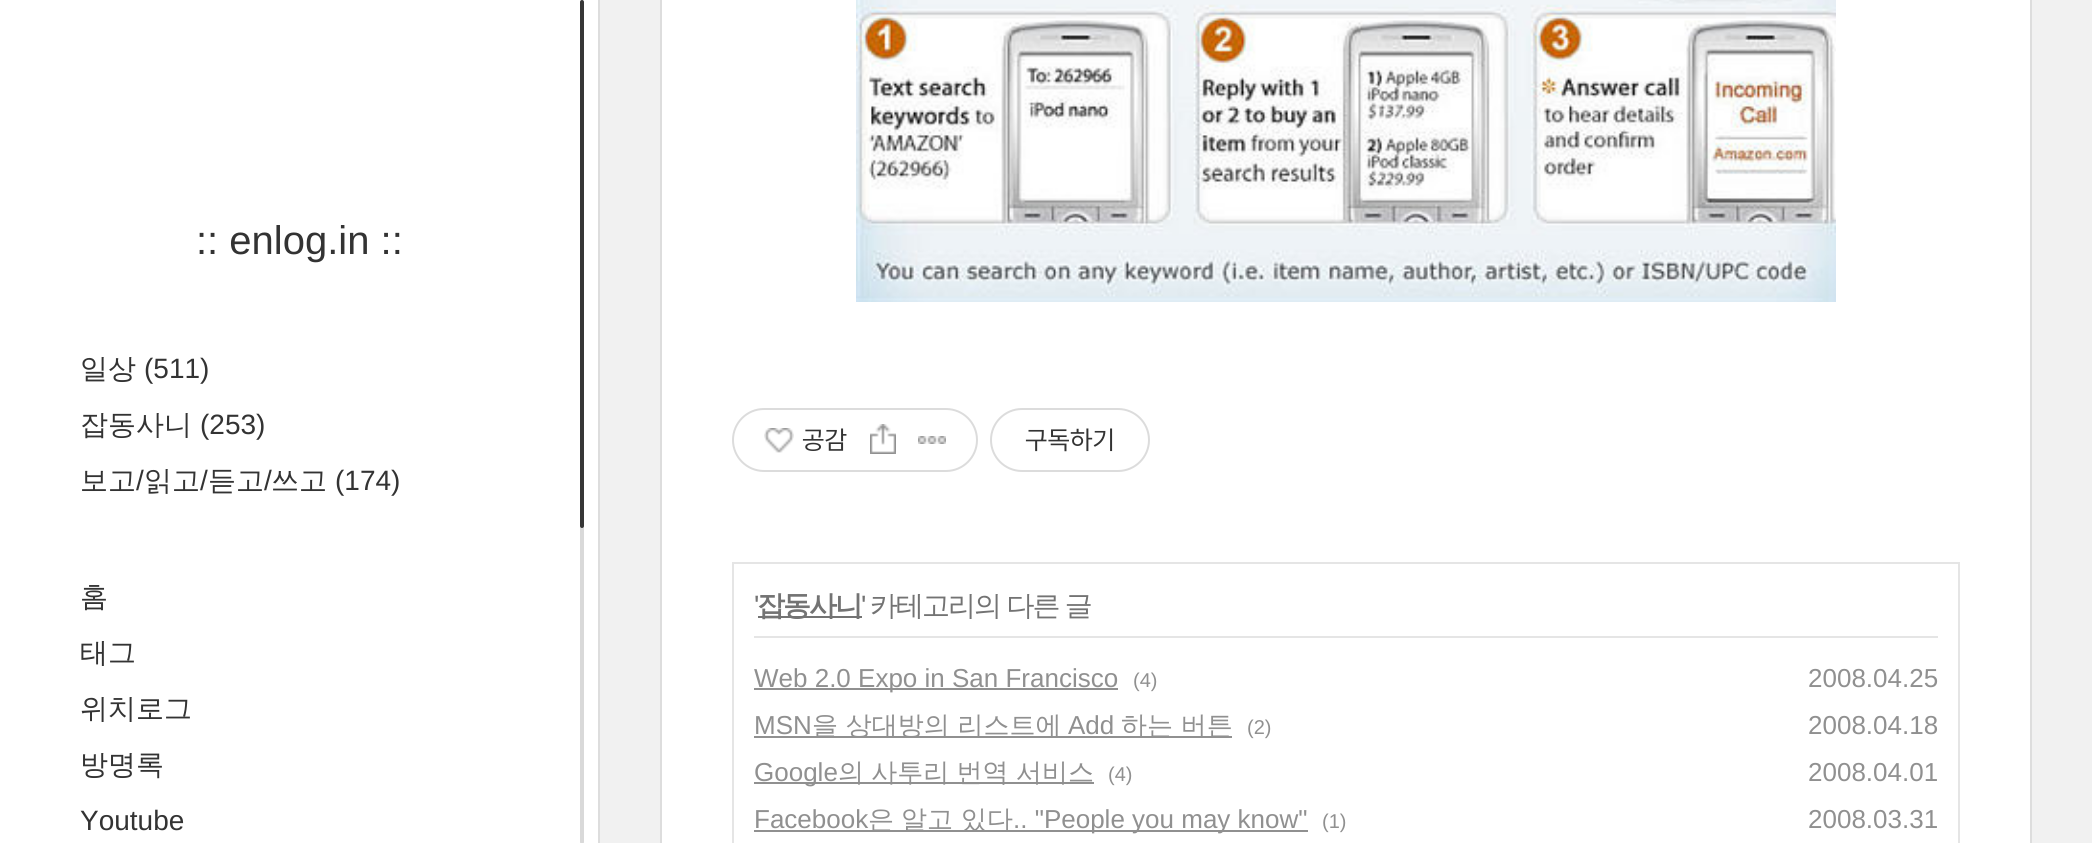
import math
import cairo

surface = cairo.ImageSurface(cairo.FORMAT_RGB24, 2092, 843)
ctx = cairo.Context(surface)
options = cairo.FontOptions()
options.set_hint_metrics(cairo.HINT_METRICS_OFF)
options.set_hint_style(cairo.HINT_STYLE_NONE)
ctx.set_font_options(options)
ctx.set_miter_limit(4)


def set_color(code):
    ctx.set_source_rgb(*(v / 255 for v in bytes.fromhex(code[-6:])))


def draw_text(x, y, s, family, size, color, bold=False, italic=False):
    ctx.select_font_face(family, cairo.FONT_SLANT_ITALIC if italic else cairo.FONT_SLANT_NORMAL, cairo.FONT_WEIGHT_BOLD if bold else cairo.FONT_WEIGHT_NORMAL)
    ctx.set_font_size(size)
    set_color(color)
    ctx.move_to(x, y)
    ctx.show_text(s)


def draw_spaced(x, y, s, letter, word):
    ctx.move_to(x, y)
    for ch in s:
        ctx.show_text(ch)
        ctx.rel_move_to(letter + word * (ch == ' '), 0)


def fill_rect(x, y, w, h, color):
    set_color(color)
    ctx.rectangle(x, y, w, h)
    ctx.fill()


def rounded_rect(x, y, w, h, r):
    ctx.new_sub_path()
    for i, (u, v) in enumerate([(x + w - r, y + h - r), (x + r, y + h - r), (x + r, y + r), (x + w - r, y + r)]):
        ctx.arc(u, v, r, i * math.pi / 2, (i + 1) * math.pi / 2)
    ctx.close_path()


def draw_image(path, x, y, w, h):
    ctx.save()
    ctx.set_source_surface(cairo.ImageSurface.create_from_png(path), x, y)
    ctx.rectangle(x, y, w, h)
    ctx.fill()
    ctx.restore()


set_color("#f1f1f1")
ctx.paint()
fill_rect(0, 0, 598, 843, "#ffffff")
fill_rect(598, 0, 2, 843, "#dddddd")
draw_text(196, 254, ":: enlog.in ::", "Liberation Sans", 40, "#333333")
draw_text(80, 378, "일상", "WenQuanYi Zen Hei Medium", 28, "#333333")
draw_text(144, 378, "(511)", "Liberation Sans", 28, "#333333")
draw_text(80, 434, "잡동사니", "WenQuanYi Zen Hei Medium", 28, "#333333")
draw_text(200, 434, "(253)", "Liberation Sans", 28, "#333333")
draw_text(80, 490, "보고", "WenQuanYi Zen Hei Medium", 28, "#333333")
draw_text(136, 490, "/", "Liberation Sans", 28, "#333333")
draw_text(144, 490, "읽고", "WenQuanYi Zen Hei Medium", 28, "#333333")
draw_text(200, 490, "/", "Liberation Sans", 28, "#333333")
draw_text(208, 490, "듣고", "WenQuanYi Zen Hei Medium", 28, "#333333")
draw_text(264, 490, "/", "Liberation Sans", 28, "#333333")
draw_text(271, 490, "쓰고", "WenQuanYi Zen Hei Medium", 28, "#333333")
draw_text(335, 490, "(174)", "Liberation Sans", 28, "#333333")
draw_text(80, 606, "홈", "WenQuanYi Zen Hei Medium", 28, "#333333")
draw_text(80, 662, "태그", "WenQuanYi Zen Hei Medium", 28, "#333333")
draw_text(80, 718, "위치로그", "WenQuanYi Zen Hei Medium", 28, "#333333")
draw_text(80, 774, "방명록", "WenQuanYi Zen Hei Medium", 28, "#333333")
draw_text(80, 830, "Youtube", "Liberation Sans", 28, "#333333")
set_color("#d9d9d9")
rounded_rect(580, 0, 4, 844, 2)
ctx.fill()
ctx.set_source_rgba(0, 0, 0, 0.75)
rounded_rect(580, 0, 4, 528, 2)
ctx.fill()
set_color("#ffffff")
ctx.rectangle(661, -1, 1370, 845)
ctx.fill_preserve()
set_color("#dddddd")
ctx.stroke()
draw_image("assets/img1.png", 856, 0, 980, 302)
rounded_rect(733, 409, 244, 62, 31)
set_color("#dcdcdc")
ctx.stroke()
draw_image("assets/img2.png", 764, 428, 30, 25)
draw_text(802, 449, "공감", "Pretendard", 26, "#333333")
draw_image("assets/img3.png", 870, 424, 26, 30)
draw_image("assets/img4.png", 918, 436, 28, 8)
rounded_rect(991, 409, 158, 62, 31)
set_color("#dcdcdc")
ctx.stroke()
draw_text(1025, 449, "구독하기", "Pretendard", 26, "#333333")
ctx.rectangle(733, 563, 1226, 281)
set_color("#e5e5e5")
ctx.stroke()
fill_rect(754, 636, 1184, 2, "#e5e5e5")
ctx.select_font_face("Liberation Sans")
ctx.set_font_size(28)
set_color("#737373")
draw_spaced(754, 615, "'", -2, 0)
fill_rect(758, 616, 104, 2, "#737373")
ctx.select_font_face("WenQuanYi Zen Hei", cairo.FONT_SLANT_NORMAL, cairo.FONT_WEIGHT_BOLD)
draw_spaced(757, 615, "잡동사니", -2, 0)
ctx.select_font_face("Liberation Sans")
draw_spaced(861, 615, "'", -2, 0)
ctx.select_font_face("WenQuanYi Zen Hei Medium")
draw_spaced(870, 615, "카테고리의 다른 글", -2, 0)
fill_rect(754, 688, 364, 2, "#909090")
draw_text(754, 687, "Web 2.0 Expo in San Francisco", "Liberation Sans", 26, "#909090")
draw_text(1133, 687, "(4)", "Liberation Sans", 20, "#909090")
draw_text(1808, 687, "2008.04.25", "Liberation Sans", 26, "#909090")
draw_text(754, 734, "MSN", "Liberation Sans", 26, "#909090")
fill_rect(754, 736, 478, 2, "#909090")
draw_text(812, 734, "을 상대방의 리스트에", "WenQuanYi Zen Hei Medium", 26, "#909090")
draw_text(1068, 734, "Add", "Liberation Sans", 26, "#909090")
draw_text(1121, 734, "하는 버튼", "WenQuanYi Zen Hei Medium", 26, "#909090")
draw_text(1247, 734, "(2)", "Liberation Sans", 20, "#909090")
draw_text(1808, 734, "2008.04.18", "Liberation Sans", 26, "#909090")
fill_rect(754, 782, 340, 2, "#909090")
draw_text(754, 781, "Google", "Liberation Sans", 26, "#909090")
ctx.select_font_face("WenQuanYi Zen Hei Medium")
draw_spaced(838, 781, "의 사투리 번역 서비스", 0, -0.5)
draw_text(1108, 781, "(4)", "Liberation Sans", 20, "#909090")
draw_text(1808, 781, "2008.04.01", "Liberation Sans", 26, "#909090")
draw_text(754, 828, "Facebook", "Liberation Sans", 26, "#909090")
fill_rect(754, 830, 554, 2, "#909090")
draw_text(868, 828, "은", "WenQuanYi Zen Hei Medium", 26, "#909090")
draw_text(901, 828, "알고", "WenQuanYi Zen Hei Medium", 26, "#909090")
draw_text(961, 828, "있다", "WenQuanYi Zen Hei Medium", 26, "#909090")
draw_text(1013, 828, ".. \"People you may know\"", "Liberation Sans", 26, "#909090")
draw_text(1322, 828, "(1)", "Liberation Sans", 20, "#909090")
draw_text(1808, 828, "2008.03.31", "Liberation Sans", 26, "#909090")
surface.write_to_png("output.png")
